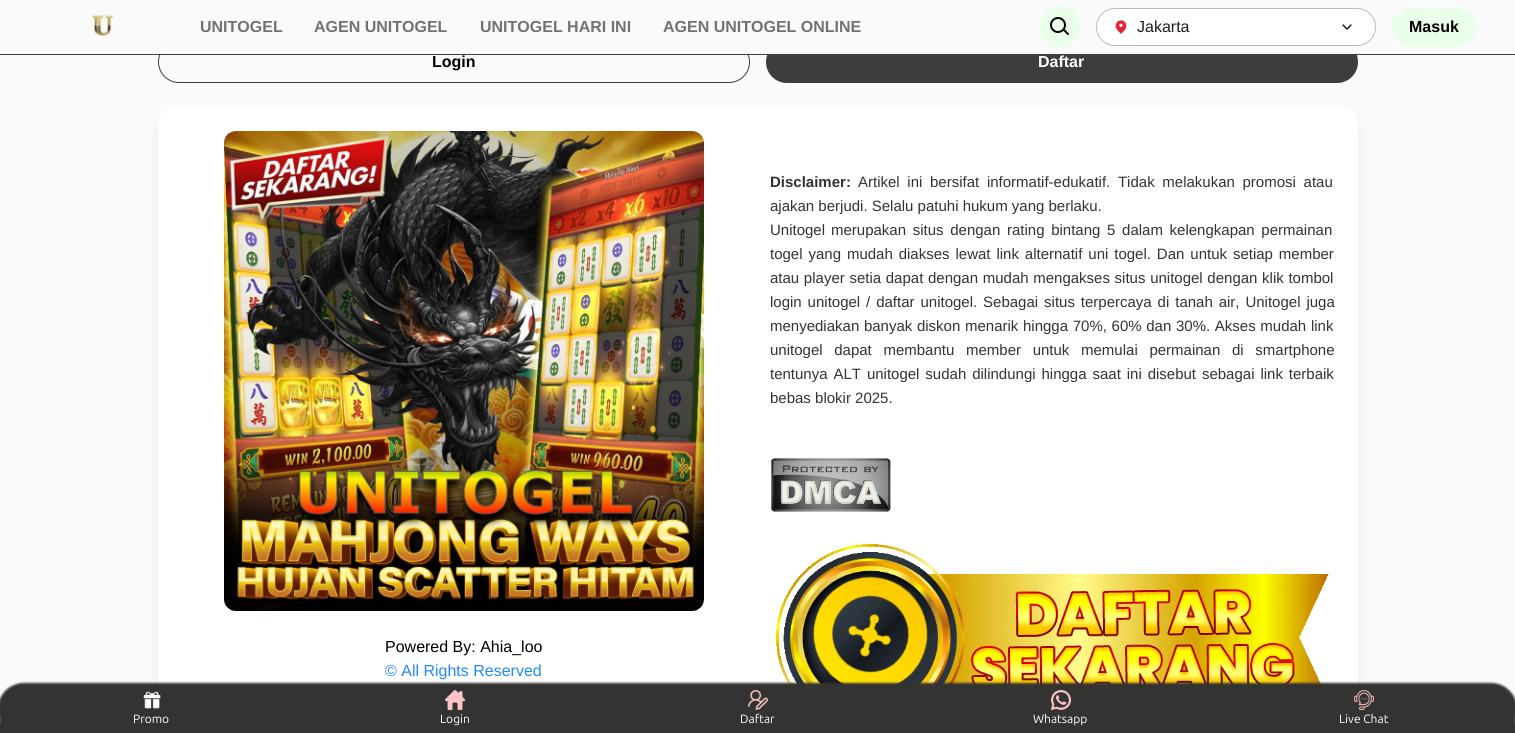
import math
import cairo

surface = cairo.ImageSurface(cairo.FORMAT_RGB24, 1515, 733)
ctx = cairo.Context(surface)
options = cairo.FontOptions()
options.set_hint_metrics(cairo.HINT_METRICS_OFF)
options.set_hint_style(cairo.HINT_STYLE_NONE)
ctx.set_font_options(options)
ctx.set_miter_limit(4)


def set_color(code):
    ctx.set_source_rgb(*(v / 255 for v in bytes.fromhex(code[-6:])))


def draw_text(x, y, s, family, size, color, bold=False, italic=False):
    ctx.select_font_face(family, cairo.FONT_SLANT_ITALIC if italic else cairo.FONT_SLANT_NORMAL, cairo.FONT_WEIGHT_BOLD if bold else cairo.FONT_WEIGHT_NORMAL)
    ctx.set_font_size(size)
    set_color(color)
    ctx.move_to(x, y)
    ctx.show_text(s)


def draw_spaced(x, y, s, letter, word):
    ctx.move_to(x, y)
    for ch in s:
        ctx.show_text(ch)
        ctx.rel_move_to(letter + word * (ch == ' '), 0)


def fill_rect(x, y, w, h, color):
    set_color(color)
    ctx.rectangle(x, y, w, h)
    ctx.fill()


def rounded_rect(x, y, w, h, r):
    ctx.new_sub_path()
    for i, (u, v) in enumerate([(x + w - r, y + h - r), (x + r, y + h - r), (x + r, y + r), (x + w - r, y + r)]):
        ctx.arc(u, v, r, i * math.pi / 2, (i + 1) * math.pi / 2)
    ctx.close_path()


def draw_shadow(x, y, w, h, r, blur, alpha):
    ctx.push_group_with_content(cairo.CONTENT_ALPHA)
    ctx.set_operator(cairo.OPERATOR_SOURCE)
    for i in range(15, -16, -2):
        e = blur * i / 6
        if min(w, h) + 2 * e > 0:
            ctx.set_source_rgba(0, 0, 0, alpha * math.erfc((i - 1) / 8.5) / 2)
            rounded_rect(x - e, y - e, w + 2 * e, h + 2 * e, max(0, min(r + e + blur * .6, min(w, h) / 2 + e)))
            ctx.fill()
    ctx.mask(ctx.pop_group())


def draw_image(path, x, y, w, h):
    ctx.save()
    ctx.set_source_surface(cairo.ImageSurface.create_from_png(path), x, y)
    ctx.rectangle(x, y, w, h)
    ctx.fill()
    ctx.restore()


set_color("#fafafa")
ctx.paint()
rounded_rect(158.5, 41.5, 591, 41, 20.5)
set_color("#3d3d3d")
ctx.set_line_width(1)
ctx.stroke()
rounded_rect(766, 41, 592, 42, 21)
ctx.fill()
fill_rect(159, 41, 1198, 13, "#fafafa")
fill_rect(0, 54, 1515, 1, "#3d3d3d")
draw_image("assets/img1.png", 92, 14, 22, 23)
draw_text(200, 32, "UNITOGEL", "Liberation Sans", 16, "#727272", bold=True)
draw_text(314, 32, "AGEN UNITOGEL", "Liberation Sans", 16, "#727272", bold=True)
draw_text(480, 32, "UNITOGEL HARI INI", "Liberation Sans", 16, "#727272", bold=True)
draw_text(663, 32, "AGEN UNITOGEL ONLINE", "Liberation Sans", 16, "#727272", bold=True)
set_color("#eaffea")
rounded_rect(1040, 6, 40, 42, 20)
ctx.fill()
draw_image("assets/img2.png", 1050, 17, 19, 18)
set_color("#ffffff")
rounded_rect(1096.5, 8.5, 279, 37, 18.5)
ctx.fill_preserve()
set_color("#bbbbbb")
ctx.stroke()
draw_image("assets/img3.png", 1115, 20, 12, 14)
draw_text(1137, 32, "Jakarta", "Liberation Sans", 16, "#1c1d1d")
draw_image("assets/img4.png", 1342, 24, 10, 6)
set_color("#eaffea")
rounded_rect(1392, 7, 84, 40, 20)
ctx.fill()
draw_text(1409, 32, "Masuk", "Liberation Sans", 16, "#000000", bold=True)
draw_text(432, 67, "Login", "Liberation Sans", 16, "#000000", bold=True)
draw_text(1038, 67, "Daftar", "Liberation Sans", 16, "#ffffff", bold=True)
set_color("#000000")
draw_shadow(161, 120, 1194, 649, 13, 7.5, 0.1)
set_color("#ffffff")
rounded_rect(158, 107, 1200, 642, 16)
ctx.fill()
draw_text(770, 187, "Disclaimer:", "Liberation Sans", 15, "#333333", bold=True)
ctx.select_font_face("Liberation Sans")
draw_spaced(858, 187, "Artikel ini bersifat informatif-edukatif. Tidak melakukan promosi atau", 0, 3.5)
draw_text(770, 211, "ajakan berjudi. Selalu patuhi hukum yang berlaku.", "Liberation Sans", 15, "#333333")
draw_text(770, 235, "Unitogel", "Liberation Sans", 15, "#333333")
draw_spaced(831, 235, "merupakan situs dengan rating bintang 5 dalam kelengkapan permainan", 0, 2.5)
draw_spaced(770, 259, "togel yang mudah diakses lewat link alternatif uni togel. Dan untuk setiap member", 0, 1.75)
draw_spaced(770, 283, "atau player setia dapat dengan mudah mengakses situs unitogel dengan klik tombol", 0, 0.5)
draw_spaced(770, 307, "login unitogel / daftar unitogel. Sebagai situs terpercaya di tanah air, Unitogel juga", 0, 1.75)
draw_spaced(770, 331, "menyediakan banyak diskon menarik hingga 70%, 60% dan 30%. Akses mudah link", 0, 0.5)
draw_spaced(770, 355, "unitogel dapat membantu member untuk memulai permainan di smartphone", 0, 7.5)
draw_spaced(770, 379, "tentunya ALT unitogel sudah dilindungi hingga saat ini disebut sebagai link terbaik", 0, 1.75)
draw_text(770, 403, "bebas blokir 2025.", "Liberation Sans", 15, "#333333")
draw_image("assets/img5.png", 771, 458, 120, 54)
draw_image("assets/img6.png", 776, 544, 553, 141)
draw_image("assets/img7.png", 224, 131, 480, 480)
draw_text(385, 652, "Powered By: Ahia_loo", "Liberation Sans", 16, "#000000")
draw_text(385, 676, "© All Rights Reserved", "Liberation Sans", 16, "#2189ff")
set_color("#333332")
draw_shadow(-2, 683, 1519, 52, 42, 1, 1)
set_color("#333332")
ctx.new_path()
ctx.move_to(40, 685)
ctx.line_to(1475, 685)
ctx.curve_to(1497, 685, 1515, 703, 1515, 725)
ctx.line_to(1515, 733)
ctx.line_to(0, 733)
ctx.line_to(0, 725)
ctx.curve_to(0, 703, 18, 685, 40, 685)
ctx.close_path()
ctx.fill()
draw_image("assets/img8.png", 143, 691, 18, 18)
draw_text(133, 723, "Promo", "Ubuntu", 12, "#ffffff")
draw_image("assets/img9.png", 445, 690, 20, 20)
draw_text(440, 723, "Login", "Ubuntu", 12, "#ffffff")
draw_image("assets/img10.png", 748, 690, 20, 20)
draw_text(740, 723, "Daftar", "Ubuntu", 12, "#ffffff")
draw_image("assets/img11.png", 1051, 690, 20, 20)
draw_text(1033, 723, "Whatsapp", "Ubuntu", 12, "#ffffff")
draw_image("assets/img12.png", 1354, 690, 20, 20)
draw_text(1339, 723, "Live Chat", "Ubuntu", 12, "#ffffff")
surface.write_to_png("output.png")
